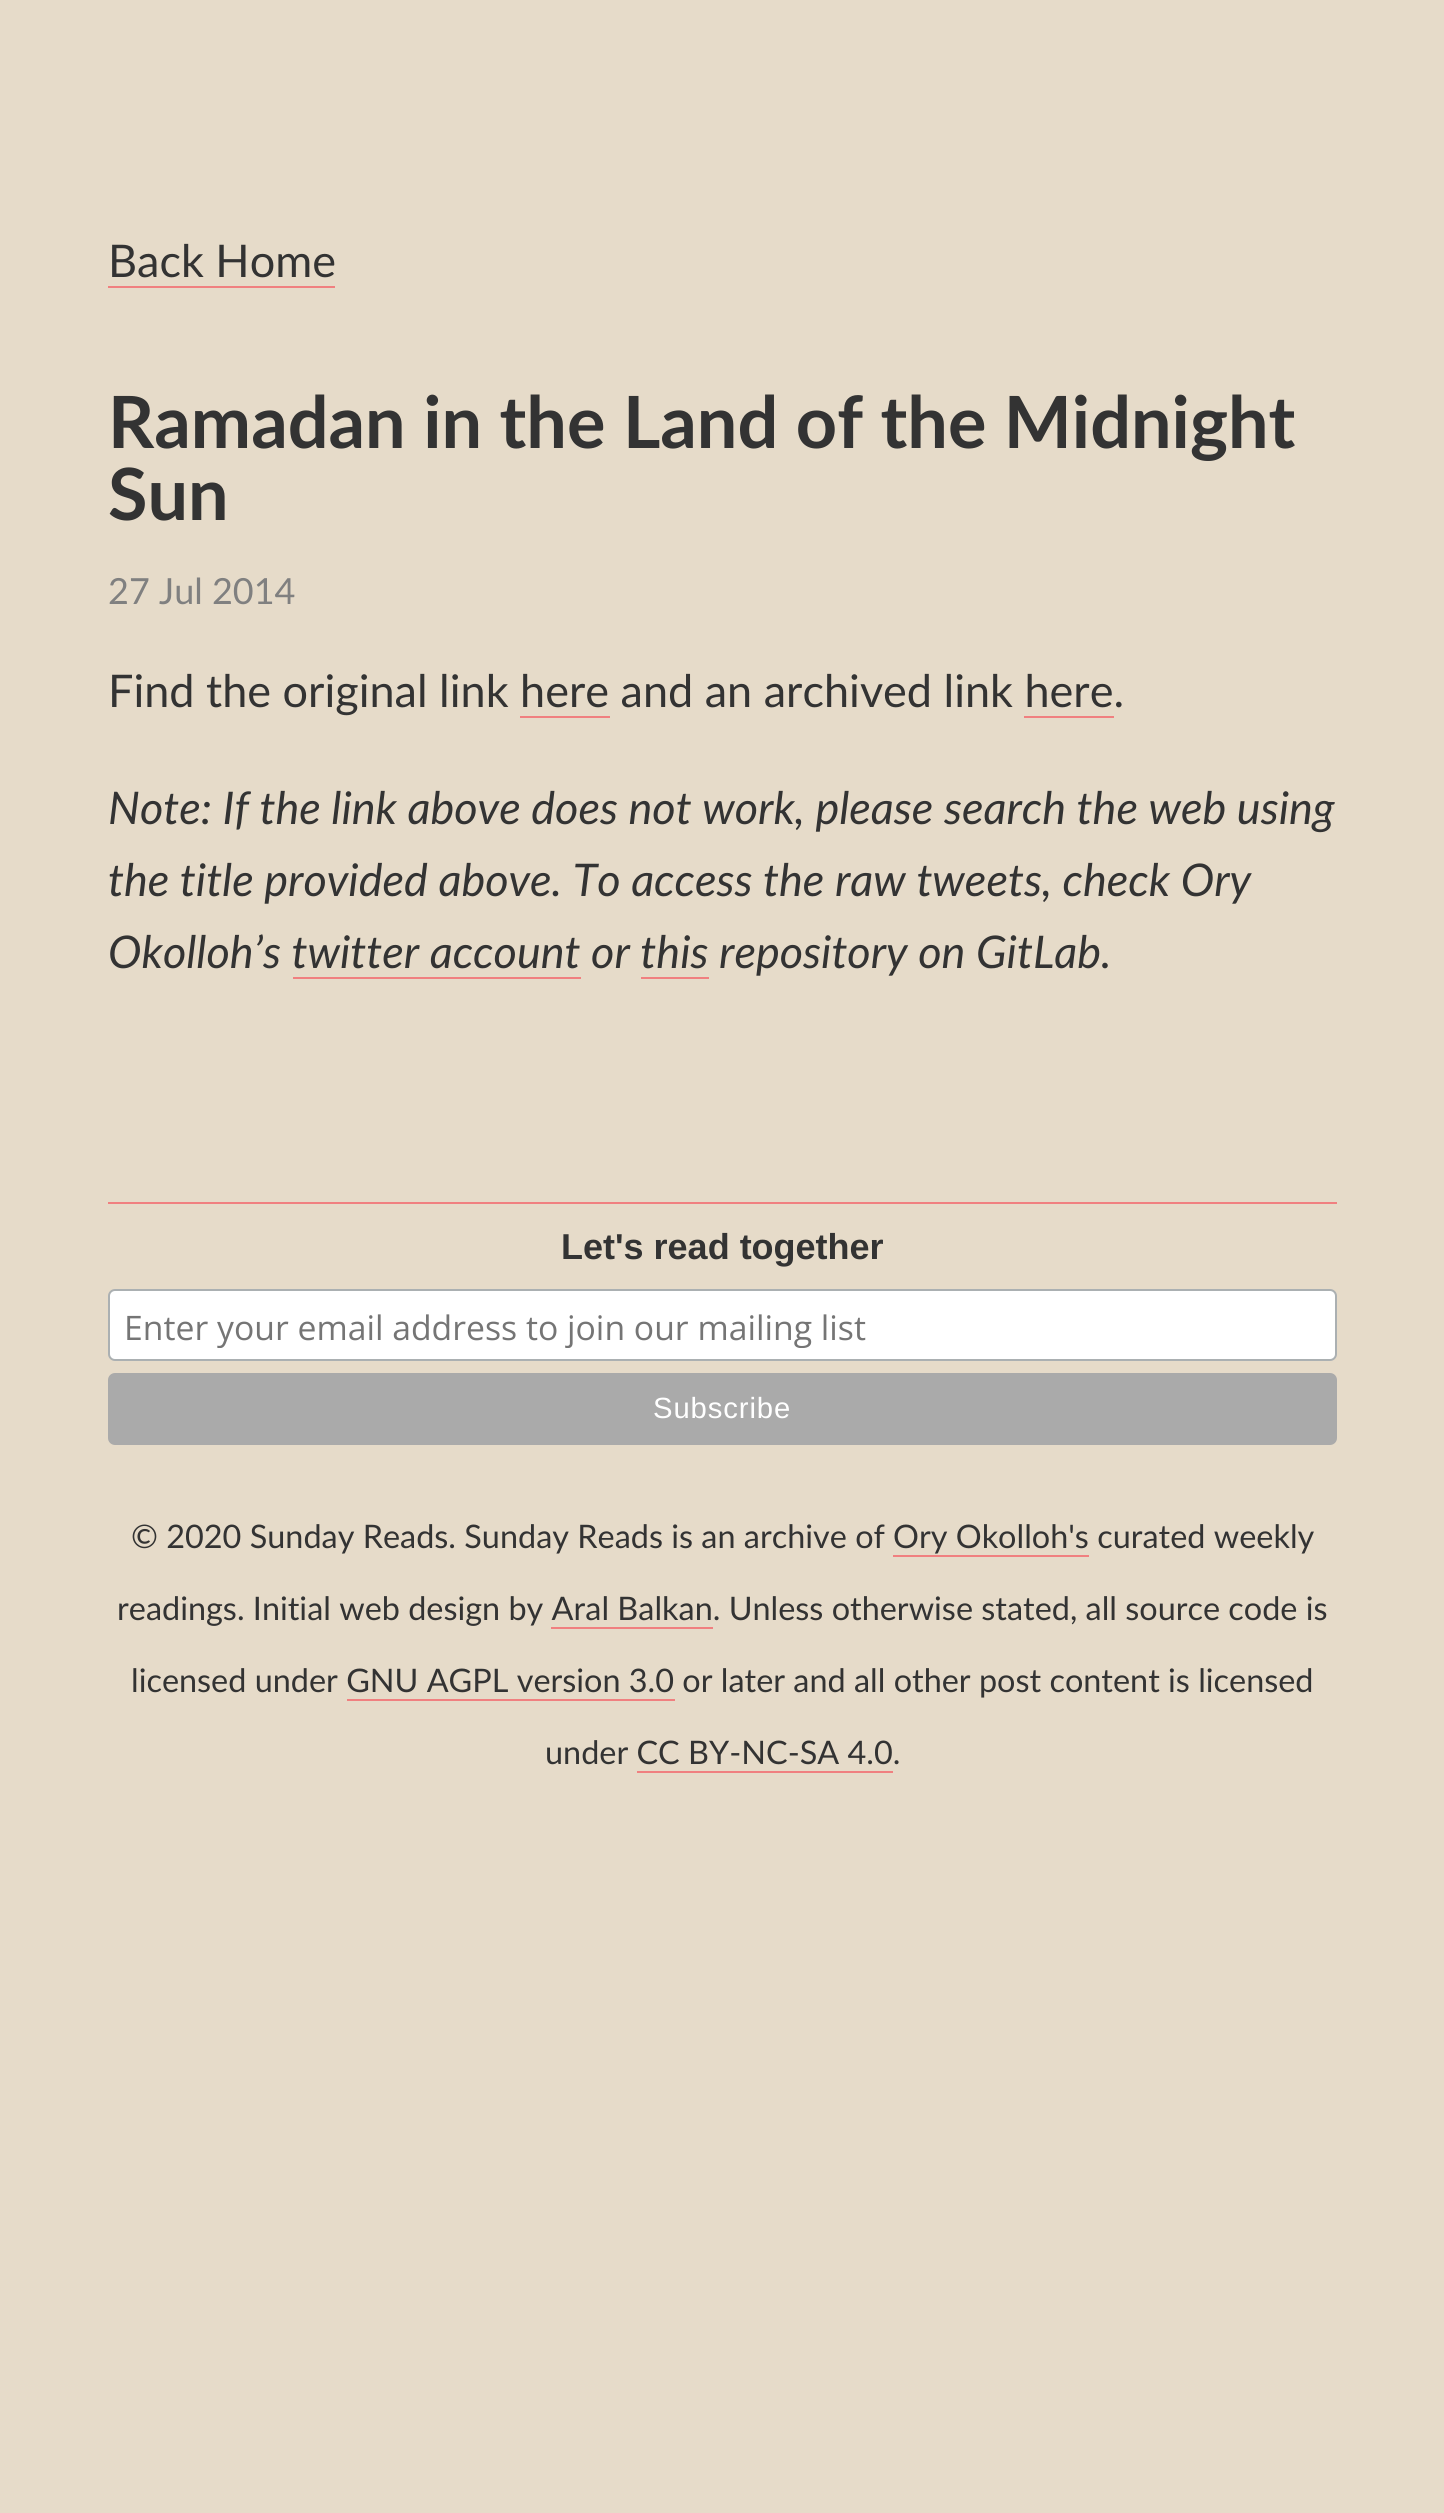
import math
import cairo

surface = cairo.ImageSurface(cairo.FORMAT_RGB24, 1444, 2513)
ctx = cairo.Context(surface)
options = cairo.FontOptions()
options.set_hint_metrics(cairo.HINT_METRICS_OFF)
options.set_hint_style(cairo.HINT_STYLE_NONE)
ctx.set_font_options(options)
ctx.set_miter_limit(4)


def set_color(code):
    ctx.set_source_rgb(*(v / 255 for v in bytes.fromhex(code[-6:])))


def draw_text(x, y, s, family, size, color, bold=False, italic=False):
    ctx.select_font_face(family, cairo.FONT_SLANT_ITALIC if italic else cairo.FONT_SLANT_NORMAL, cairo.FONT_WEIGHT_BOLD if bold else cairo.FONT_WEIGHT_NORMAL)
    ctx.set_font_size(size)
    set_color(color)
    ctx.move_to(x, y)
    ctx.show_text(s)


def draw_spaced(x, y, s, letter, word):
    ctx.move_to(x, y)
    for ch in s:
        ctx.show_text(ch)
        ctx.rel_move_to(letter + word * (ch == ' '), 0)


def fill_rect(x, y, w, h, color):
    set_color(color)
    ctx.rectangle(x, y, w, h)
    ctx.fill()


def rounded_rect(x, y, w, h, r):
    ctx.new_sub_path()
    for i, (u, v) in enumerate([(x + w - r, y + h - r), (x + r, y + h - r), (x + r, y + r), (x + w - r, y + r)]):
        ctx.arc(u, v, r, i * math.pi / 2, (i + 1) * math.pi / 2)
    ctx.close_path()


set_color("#e6dbc9")
ctx.paint()
draw_text(108, 277, "Back Home", "Lato", 45, "#333333")
fill_rect(108, 286, 227, 2, "#f08080")
draw_text(108, 448, "Ramadan in the Land of the Midnight", "Lato", 72, "#333333", bold=True)
draw_text(108, 520, "Sun", "Lato", 72, "#333333", bold=True)
draw_text(108, 604, "27 Jul 2014", "Lato", 36, "#808080")
draw_text(108, 707, "Find the original link here and an archived link here.", "Lato", 45, "#333333")
fill_rect(520, 716, 90, 2, "#f08080")
fill_rect(1024, 716, 90, 2, "#f08080")
draw_text(108, 824, "Note: If the link above does not work, please search the web using", "Lato", 45, "#333333", italic=True)
draw_text(108, 896, "the title provided above. To access the raw tweets, check Ory", "Lato", 45, "#333333", italic=True)
draw_text(108, 968, "Okolloh’s twitter account or this repository on GitLab.", "Lato", 45, "#333333", italic=True)
fill_rect(293, 977, 288, 2, "#f08080")
fill_rect(641, 977, 68, 2, "#f08080")
fill_rect(108, 1202, 1229, 2, "#f08080")
draw_text(561, 1259, "Let's read together", "Liberation Sans", 36, "#333333", bold=True)
set_color("#ffffff")
rounded_rect(109, 1290, 1227, 70, 6)
ctx.fill_preserve()
set_color("#abb0b2")
ctx.stroke()
ctx.save()
ctx.rectangle(124, 1303, 1197, 45)
ctx.clip()
draw_text(124, 1340, "Enter your email address to join our mailing list", "Open Sans", 33.75, "#757575")
ctx.restore()
set_color("#aaaaaa")
rounded_rect(108, 1373, 1229, 72, 7)
ctx.fill()
ctx.select_font_face("Liberation Sans")
ctx.set_font_size(29.25)
set_color("#ffffff")
draw_spaced(653, 1418, "Subscribe", 0.9, 0)
draw_text(131, 1548, "© 2020 Sunday Reads. Sunday Reads is an archive of", "Lato", 32.4, "#333333")
draw_text(893, 1548, "Ory Okolloh's curated weekly", "Lato", 32.4, "#333333")
fill_rect(893, 1555, 196, 2, "#f08080")
draw_text(117, 1620, "readings. Initial web design by Aral Balkan. Unless otherwise stated, all source code is", "Lato", 32.4, "#333333")
fill_rect(551, 1627, 162, 2, "#f08080")
draw_text(131, 1692, "licensed under GNU AGPL version 3.0 or later and all other post content is licensed", "Lato", 32.4, "#333333")
fill_rect(347, 1699, 328, 2, "#f08080")
draw_text(545, 1764, "under CC BY-NC-SA 4.0.", "Lato", 32.4, "#333333")
fill_rect(637, 1771, 256, 2, "#f08080")
surface.write_to_png("output.png")
